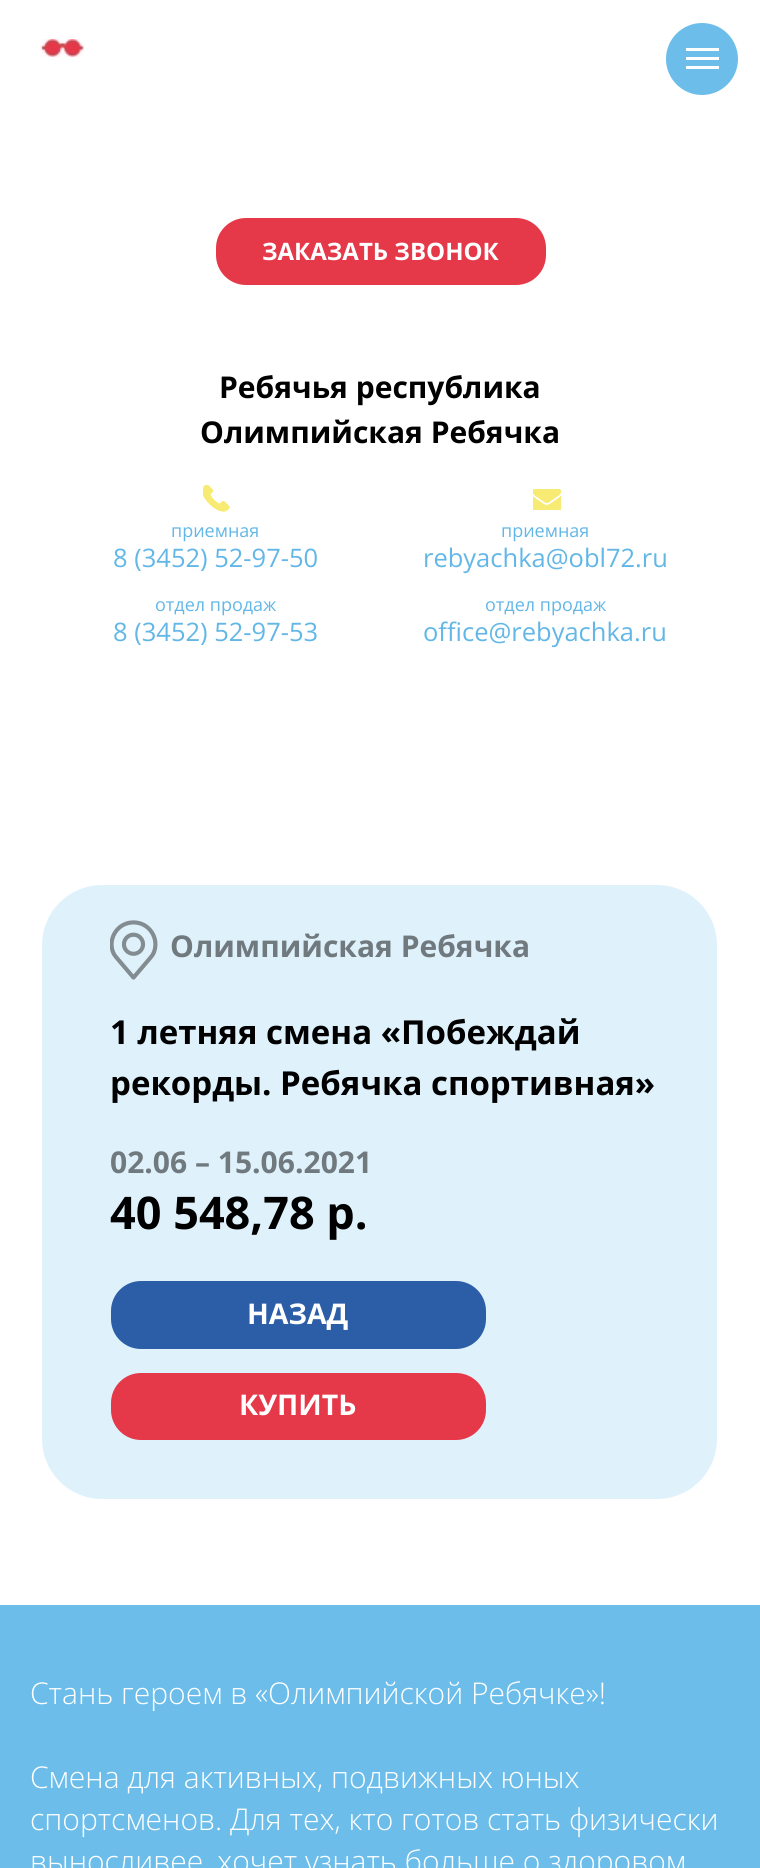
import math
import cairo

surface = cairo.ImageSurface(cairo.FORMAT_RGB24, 760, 1868)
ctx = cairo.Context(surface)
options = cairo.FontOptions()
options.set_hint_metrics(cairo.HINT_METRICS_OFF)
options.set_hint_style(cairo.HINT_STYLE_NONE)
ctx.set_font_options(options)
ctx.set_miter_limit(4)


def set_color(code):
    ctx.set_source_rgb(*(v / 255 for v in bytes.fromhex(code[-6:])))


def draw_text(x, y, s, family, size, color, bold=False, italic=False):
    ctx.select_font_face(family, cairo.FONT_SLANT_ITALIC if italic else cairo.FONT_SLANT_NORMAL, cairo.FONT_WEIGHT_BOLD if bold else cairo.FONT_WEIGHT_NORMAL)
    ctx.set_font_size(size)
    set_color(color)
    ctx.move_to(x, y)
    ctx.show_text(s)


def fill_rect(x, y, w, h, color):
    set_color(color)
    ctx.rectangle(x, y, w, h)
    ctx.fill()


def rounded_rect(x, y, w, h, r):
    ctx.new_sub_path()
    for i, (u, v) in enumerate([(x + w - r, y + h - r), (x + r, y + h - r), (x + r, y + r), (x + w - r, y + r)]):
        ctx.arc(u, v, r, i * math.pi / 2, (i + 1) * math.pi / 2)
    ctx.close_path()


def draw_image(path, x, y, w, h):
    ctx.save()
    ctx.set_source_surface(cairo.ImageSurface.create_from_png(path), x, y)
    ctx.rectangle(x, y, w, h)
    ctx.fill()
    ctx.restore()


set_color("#ffffff")
ctx.paint()
set_color("#6cbdea")
ctx.arc(702, 59, 36, 0, 2 * math.pi)
ctx.fill()
fill_rect(686, 48, 33, 3, "#ffffff")
fill_rect(686, 57, 33, 3, "#ffffff")
fill_rect(686, 66, 33, 3, "#ffffff")
draw_image("assets/img1.png", 40, 39, 44, 18)
set_color("#e53849")
rounded_rect(216, 218, 330, 67, 30)
ctx.fill()
draw_text(262, 260, "ЗАКАЗАТЬ ЗВОНОК", "Open Sans", 24, "#ffffff", bold=True)
draw_text(219, 398, "Ребячья республика", "Open Sans", 30, "#000000", bold=True)
draw_text(200, 443, "Олимпийская Ребячка", "Open Sans", 30, "#000000", bold=True)
draw_image("assets/img2.png", 203, 485, 27, 27)
draw_image("assets/img3.png", 533, 489, 28, 21)
draw_text(171, 537, "приемная", "Open Sans", 18, "#62b7e7")
draw_text(501, 537, "приемная", "Open Sans", 18, "#62b7e7")
draw_text(113, 567, "8 (3452) 52-97-50", "Open Sans", 25.5, "#62b7e7")
draw_text(423, 567, "rebyachka@obl72.ru", "Open Sans", 25.5, "#62b7e7")
draw_text(155, 611, "отдел продаж", "Open Sans", 18, "#62b7e7")
draw_text(485, 611, "отдел продаж", "Open Sans", 18, "#62b7e7")
draw_text(113, 641, "8 (3452) 52-97-53", "Open Sans", 25.5, "#62b7e7")
draw_text(423, 641, "office@rebyachka.ru", "Open Sans", 25.5, "#62b7e7")
set_color("#dff2fc")
rounded_rect(42, 885, 675, 614, 60)
ctx.fill()
draw_image("assets/img4.png", 110, 920, 48, 60)
draw_text(170, 957, "Олимпийская Ребячка", "Open Sans", 30, "#70797e", bold=True)
draw_text(110, 1044, "1 летняя смена «Побеждай", "Open Sans", 33, "#000000", bold=True)
draw_text(110, 1095, "рекорды. Ребячка спортивная»", "Open Sans", 33, "#000000", bold=True)
draw_text(110, 1173, "02.06 – 15.06.2021", "Open Sans", 30, "#70797e", bold=True)
draw_text(110, 1229, "40 548,78 р.", "Open Sans", 45, "#000000", bold=True)
set_color("#2c5ea7")
rounded_rect(115, 1285, 367, 60, 26)
ctx.fill_preserve()
ctx.set_line_width(8)
ctx.stroke()
draw_text(247, 1324, "НАЗАД", "Open Sans", 28.5, "#ffffff", bold=True)
set_color("#e53849")
rounded_rect(111, 1373, 375, 67, 30)
ctx.fill()
draw_text(239, 1415, "КУПИТЬ", "Open Sans", 28.5, "#ffffff", bold=True)
fill_rect(0, 1605, 760, 263, "#6cbdea")
draw_text(30, 1704, "Стань героем в «Олимпийской Ребячке»!", "Open Sans Light", 30, "#ffffff")
draw_text(30, 1788, "Смена для активных, подвижных юных", "Open Sans Light", 30, "#ffffff")
draw_text(30, 1830, "спортсменов. Для тех, кто готов стать физически", "Open Sans Light", 30, "#ffffff")
draw_text(30, 1872, "выносливее, хочет узнать больше о здоровом", "Open Sans Light", 30, "#ffffff")
surface.write_to_png("output.png")
